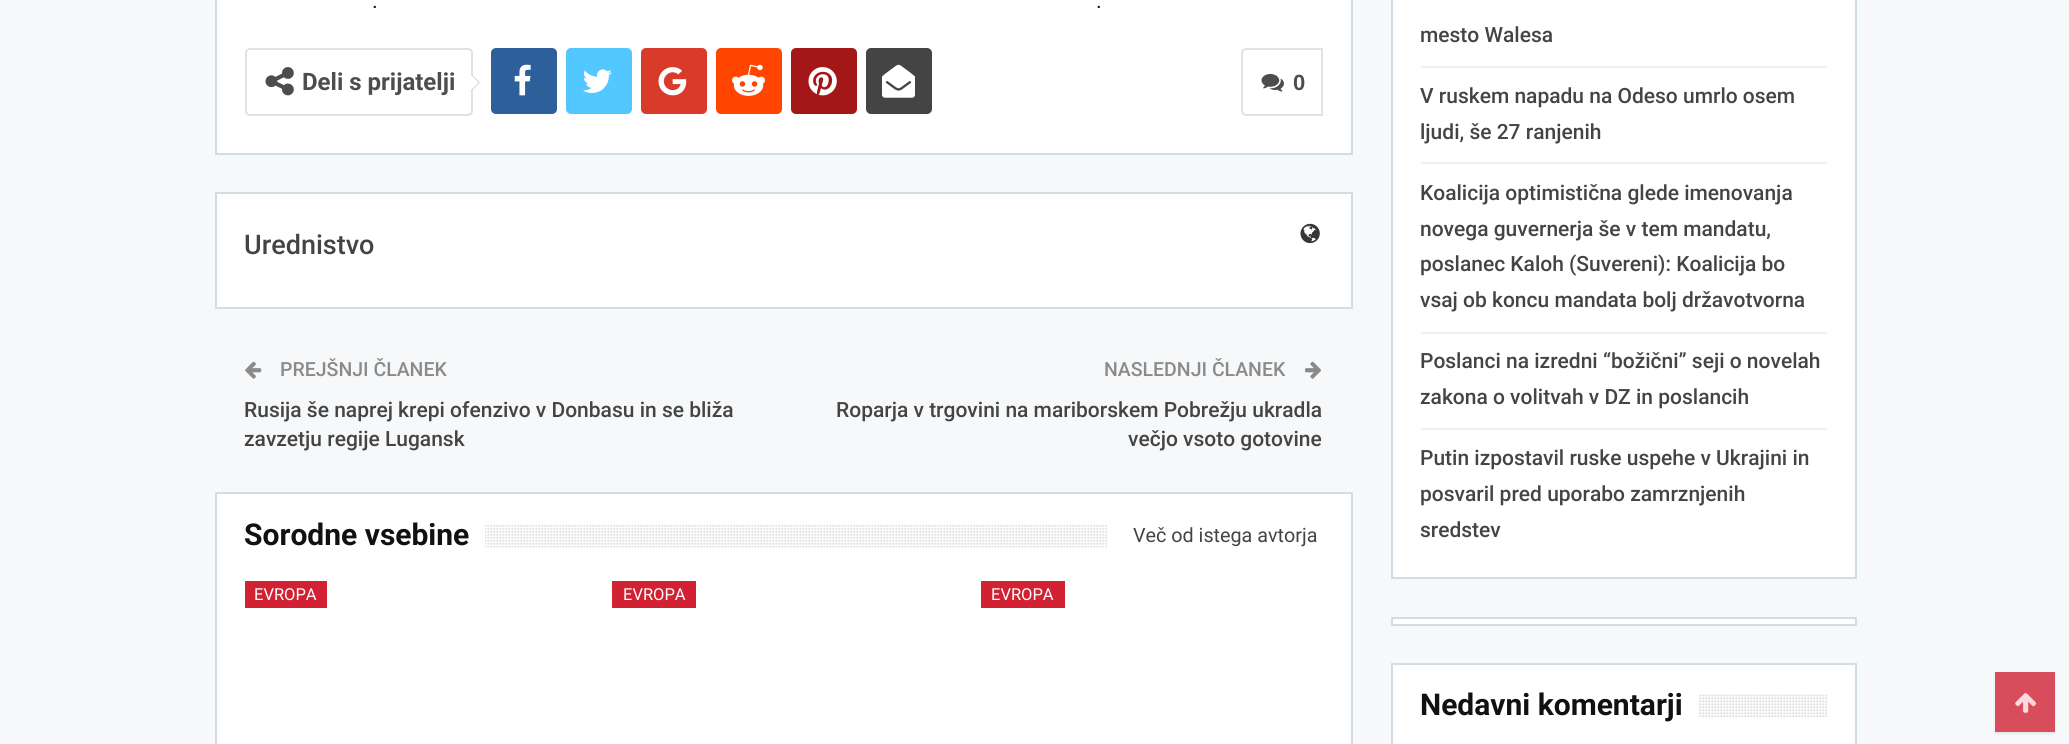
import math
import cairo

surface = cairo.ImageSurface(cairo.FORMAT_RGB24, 2069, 744)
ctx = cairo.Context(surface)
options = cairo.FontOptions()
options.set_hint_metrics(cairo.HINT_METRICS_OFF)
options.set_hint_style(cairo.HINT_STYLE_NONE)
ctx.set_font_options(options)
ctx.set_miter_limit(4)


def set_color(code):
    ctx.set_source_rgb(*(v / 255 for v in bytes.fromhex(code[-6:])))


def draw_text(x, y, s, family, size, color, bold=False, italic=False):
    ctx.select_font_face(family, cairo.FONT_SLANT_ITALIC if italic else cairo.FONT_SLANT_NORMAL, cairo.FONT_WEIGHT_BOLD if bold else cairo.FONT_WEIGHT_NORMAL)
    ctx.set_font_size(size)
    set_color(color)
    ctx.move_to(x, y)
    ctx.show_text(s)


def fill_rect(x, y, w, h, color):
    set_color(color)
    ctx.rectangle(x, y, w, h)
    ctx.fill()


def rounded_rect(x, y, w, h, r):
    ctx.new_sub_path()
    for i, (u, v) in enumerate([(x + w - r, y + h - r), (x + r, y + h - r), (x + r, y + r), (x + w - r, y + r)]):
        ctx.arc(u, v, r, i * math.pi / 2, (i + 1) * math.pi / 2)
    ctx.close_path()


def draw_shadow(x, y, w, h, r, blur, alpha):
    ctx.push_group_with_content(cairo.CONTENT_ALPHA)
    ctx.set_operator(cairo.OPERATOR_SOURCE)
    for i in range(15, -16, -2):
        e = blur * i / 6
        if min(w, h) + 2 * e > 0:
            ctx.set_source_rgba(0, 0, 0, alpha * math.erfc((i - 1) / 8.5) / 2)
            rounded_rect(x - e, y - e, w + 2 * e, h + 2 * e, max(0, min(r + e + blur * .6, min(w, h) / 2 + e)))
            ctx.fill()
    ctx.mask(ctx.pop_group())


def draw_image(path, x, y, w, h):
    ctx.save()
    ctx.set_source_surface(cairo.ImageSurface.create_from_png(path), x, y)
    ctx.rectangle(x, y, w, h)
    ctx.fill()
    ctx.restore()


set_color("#f6f8fa")
ctx.paint()
set_color("#ffffff")
ctx.rectangle(216, -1, 1136, 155)
ctx.fill_preserve()
set_color("#d2dce3")
ctx.stroke()
draw_text(372, 8, ".", "Roboto", 22, "#222222")
draw_text(1096, 8, ".", "Roboto", 22, "#222222")
rounded_rect(246, 49, 226, 66, 4)
set_color("#e2e2e2")
ctx.stroke()
draw_image("assets/img1.png", 265, 67, 29, 29)
draw_text(302, 90, "Deli s prijatelji", "Roboto", 24, "#4d4d4d", bold=True)
set_color("#d7d7d7")
ctx.new_path()
ctx.move_to(471, 91.5)
ctx.line_to(471, 73.5)
ctx.line_to(480, 82.5)
ctx.close_path()
ctx.fill()
set_color("#ffffff")
ctx.new_path()
ctx.move_to(471, 90)
ctx.line_to(471, 75)
ctx.line_to(478.5, 82.5)
ctx.close_path()
ctx.fill()
set_color("#2d5f9a")
rounded_rect(491, 48, 66, 66, 5)
ctx.fill()
draw_image("assets/img2.png", 514, 64, 17, 32)
set_color("#53c7ff")
rounded_rect(566, 48, 66, 66, 5)
ctx.fill()
draw_image("assets/img3.png", 583, 69, 29, 24)
set_color("#d93b2b")
rounded_rect(641, 48, 66, 66, 5)
ctx.fill()
draw_image("assets/img4.png", 658, 67, 29, 29)
set_color("#ff4500")
rounded_rect(716, 48, 66, 66, 5)
ctx.fill()
draw_image("assets/img5.png", 732, 64, 33, 32)
set_color("#a41719")
rounded_rect(791, 48, 66, 66, 5)
ctx.fill()
draw_image("assets/img6.png", 808, 67, 29, 29)
set_color("#444444")
rounded_rect(866, 48, 66, 66, 5)
ctx.fill()
draw_image("assets/img7.png", 882, 64, 33, 34)
ctx.new_path()
ctx.move_to(1246, 49)
ctx.line_to(1322, 49)
ctx.line_to(1322, 115)
ctx.line_to(1246, 115)
ctx.curve_to(1244, 115, 1242, 113, 1242, 111)
ctx.line_to(1242, 53)
ctx.curve_to(1242, 51, 1244, 49, 1246, 49)
ctx.close_path()
set_color("#e2e2e2")
ctx.stroke()
draw_image("assets/img8.png", 1261, 73, 23, 19)
draw_text(1293, 90, "0", "Liberation Sans", 22, "#4d4d4d", bold=True)
set_color("#ffffff")
ctx.rectangle(216, 193, 1136, 115)
ctx.fill_preserve()
set_color("#d2dce3")
ctx.stroke()
draw_text(244, 254, "Urednistvo", "Roboto Medium", 27, "#444444")
draw_image("assets/img9.png", 1300, 223, 20, 21)
draw_image("assets/img10.png", 245, 361, 17, 18)
draw_text(280, 376, "PREJŠNJI ČLANEK", "Roboto Medium", 19.5, "#8a8a8a")
draw_text(244, 417, "Rusija še naprej krepi ofenzivo v Donbasu in se bliža", "Roboto Medium", 21, "#444444")
draw_text(244, 446, "zavzetju regije Lugansk", "Roboto Medium", 21, "#444444")
draw_text(1104, 376, "NASLEDNJI ČLANEK", "Roboto Medium", 19.5, "#8a8a8a")
draw_image("assets/img11.png", 1305, 361, 16, 18)
draw_text(836, 417, "Roparja v trgovini na mariborskem Pobrežju ukradla", "Roboto Medium", 21, "#444444")
draw_text(1128, 446, "večjo vsoto gotovine", "Roboto Medium", 21, "#444444")
set_color("#ffffff")
ctx.rectangle(216, 493, 1136, 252)
ctx.fill_preserve()
set_color("#d2dce3")
ctx.stroke()
draw_image("assets/img12.png", 244, 525, 863, 23)
fill_rect(245, 525, 240, 23, "#ffffff")
draw_text(244, 545, "Sorodne vsebine", "Roboto", 30, "#111111", bold=True)
draw_text(1133, 542, "Več od istega avtorja", "Roboto", 19.75, "#444444")
fill_rect(245, 581, 82, 27, "#d12133")
draw_text(254, 600, "EVROPA", "Roboto", 16.5, "#ffffff")
fill_rect(612, 581, 84, 27, "#d12133")
draw_text(623, 600, "EVROPA", "Roboto", 16.5, "#ffffff")
fill_rect(981, 581, 84, 27, "#d12133")
draw_text(991, 600, "EVROPA", "Roboto", 16.5, "#ffffff")
ctx.rectangle(1392, -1, 464, 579)
ctx.fill_preserve()
set_color("#d2dce3")
ctx.stroke()
fill_rect(1421, 66, 406, 2, "#f0f0f0")
draw_text(1420, 42, "mesto Walesa", "Roboto Medium", 21, "#444444")
fill_rect(1421, 162, 406, 2, "#f0f0f0")
draw_text(1420, 103, "V ruskem napadu na Odeso umrlo osem", "Roboto Medium", 21, "#444444")
draw_text(1420, 139, "ljudi, še 27 ranjenih", "Roboto Medium", 21, "#444444")
fill_rect(1421, 332, 406, 2, "#f0f0f0")
draw_text(1420, 200, "Koalicija optimistična glede imenovanja", "Roboto Medium", 21, "#444444")
draw_text(1420, 236, "novega guvernerja še v tem mandatu,", "Roboto Medium", 21, "#444444")
draw_text(1420, 271, "poslanec Kaloh (Suvereni): Koalicija bo", "Roboto Medium", 21, "#444444")
draw_text(1420, 307, "vsaj ob koncu mandata bolj državotvorna", "Roboto Medium", 21, "#444444")
fill_rect(1421, 428, 406, 2, "#f0f0f0")
draw_text(1420, 368, "Poslanci na izredni “božični” seji o novelah", "Roboto Medium", 21, "#444444")
draw_text(1420, 404, "zakona o volitvah v DZ in poslancih", "Roboto Medium", 21, "#444444")
draw_text(1420, 465, "Putin izpostavil ruske uspehe v Ukrajini in", "Roboto Medium", 21, "#444444")
draw_text(1420, 501, "posvaril pred uporabo zamrznjenih", "Roboto Medium", 21, "#444444")
draw_text(1420, 537, "sredstev", "Roboto Medium", 21, "#444444")
set_color("#ffffff")
ctx.rectangle(1392, 618, 464, 7)
ctx.fill_preserve()
set_color("#d2dce3")
ctx.stroke()
set_color("#ffffff")
ctx.rectangle(1392, 664, 464, 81)
ctx.fill_preserve()
set_color("#d2dce3")
ctx.stroke()
draw_image("assets/img13.png", 1420, 694, 407, 23)
fill_rect(1421, 694, 277, 23, "#ffffff")
draw_text(1420, 715, "Nedavni komentarji", "Roboto", 30, "#111111", bold=True)
set_color("#313232")
draw_shadow(1995, 674, 60, 60, 0, 1.5, 0.09)
fill_rect(1995, 672, 60, 60, "#d84c5b")
draw_image("assets/img14.png", 2015, 693, 22, 20)
surface.write_to_png("output.png")
